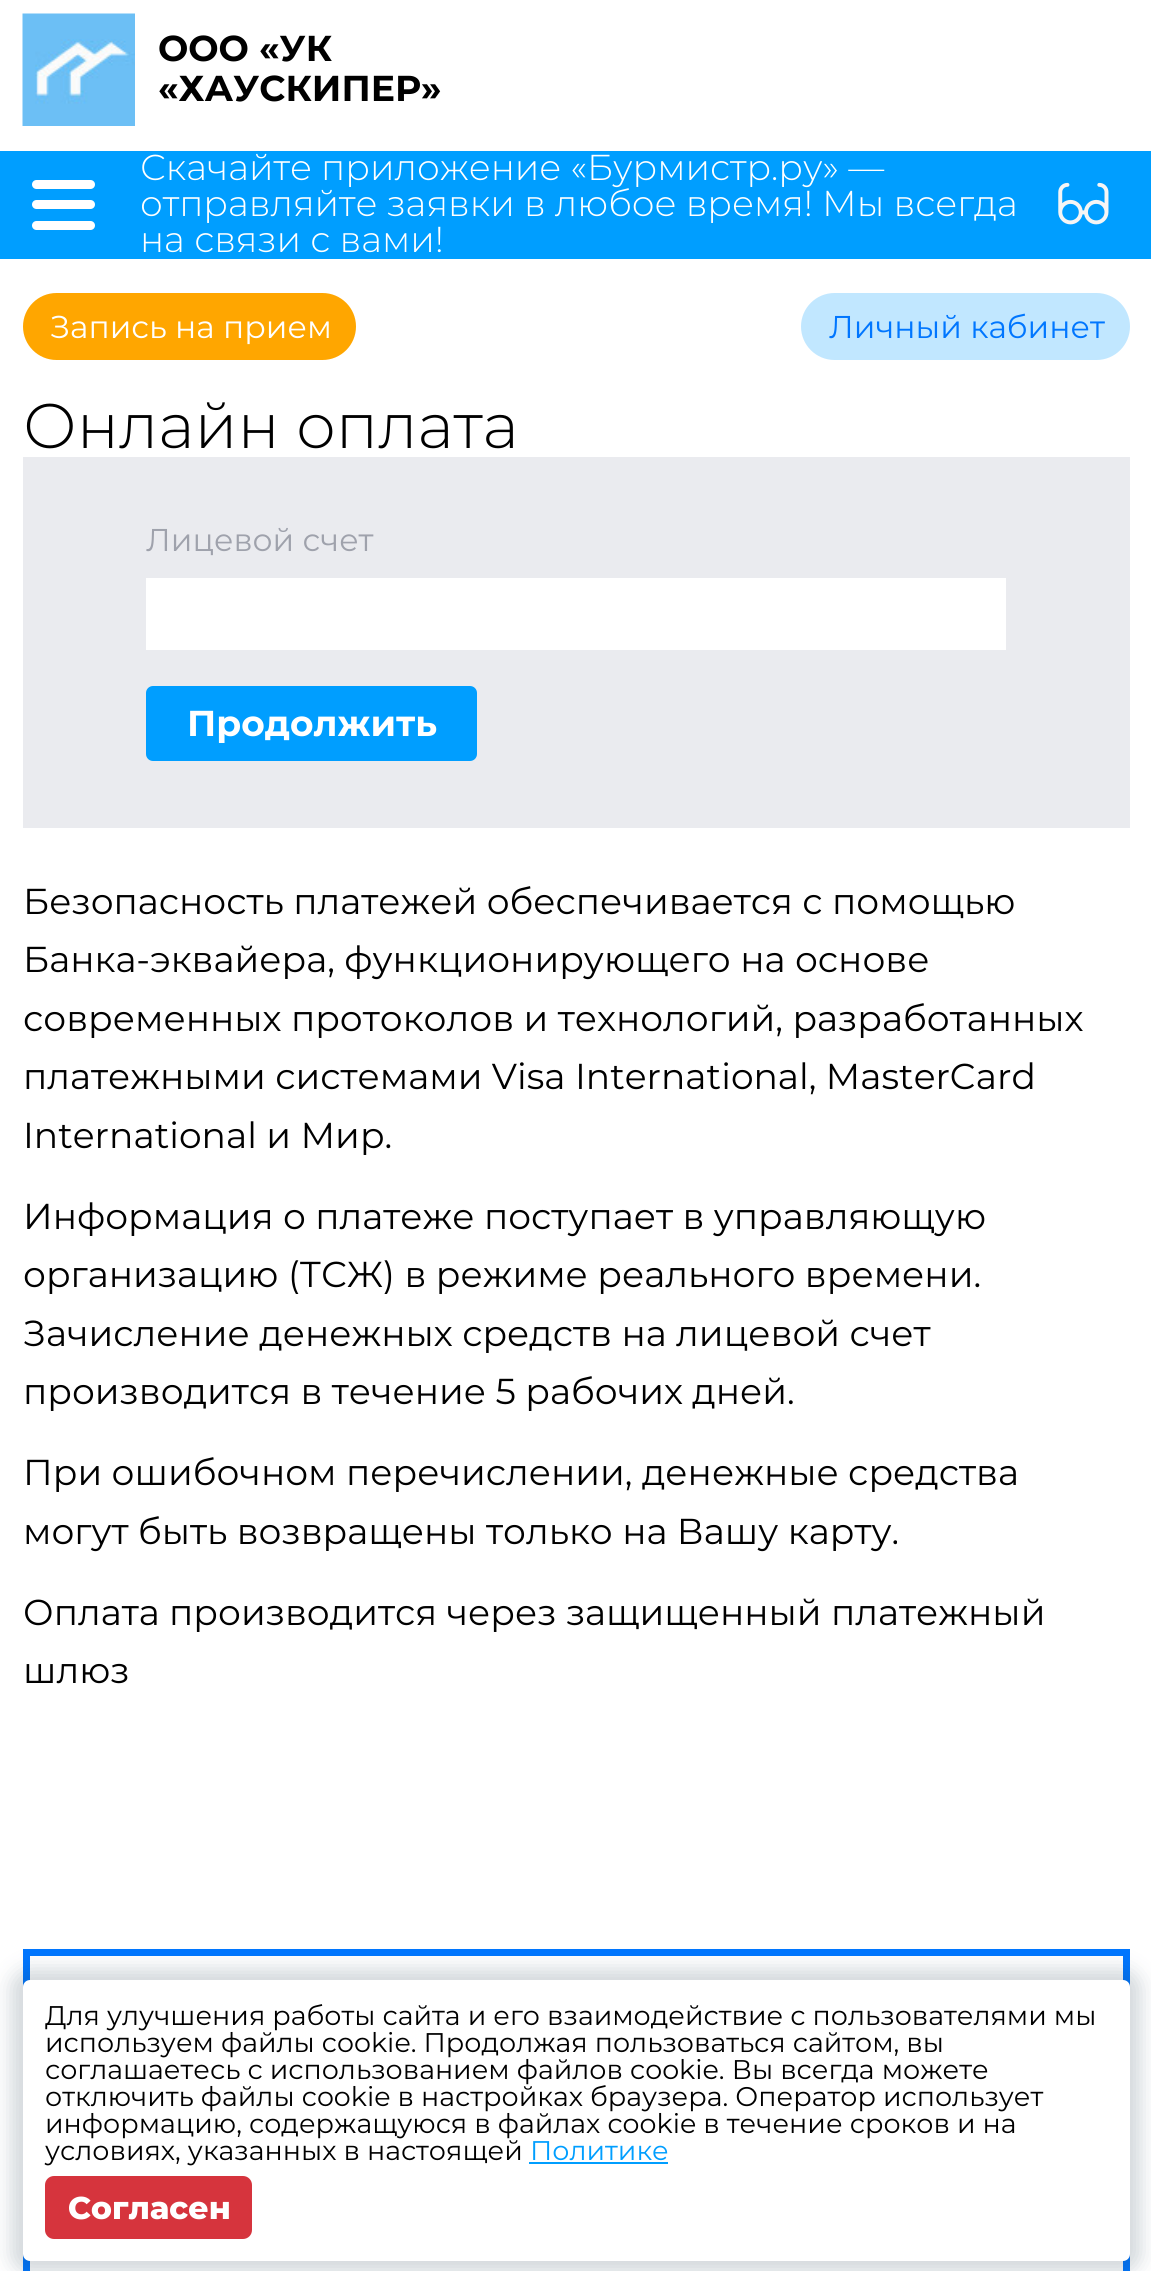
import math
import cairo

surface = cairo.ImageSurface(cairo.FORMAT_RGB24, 1151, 2271)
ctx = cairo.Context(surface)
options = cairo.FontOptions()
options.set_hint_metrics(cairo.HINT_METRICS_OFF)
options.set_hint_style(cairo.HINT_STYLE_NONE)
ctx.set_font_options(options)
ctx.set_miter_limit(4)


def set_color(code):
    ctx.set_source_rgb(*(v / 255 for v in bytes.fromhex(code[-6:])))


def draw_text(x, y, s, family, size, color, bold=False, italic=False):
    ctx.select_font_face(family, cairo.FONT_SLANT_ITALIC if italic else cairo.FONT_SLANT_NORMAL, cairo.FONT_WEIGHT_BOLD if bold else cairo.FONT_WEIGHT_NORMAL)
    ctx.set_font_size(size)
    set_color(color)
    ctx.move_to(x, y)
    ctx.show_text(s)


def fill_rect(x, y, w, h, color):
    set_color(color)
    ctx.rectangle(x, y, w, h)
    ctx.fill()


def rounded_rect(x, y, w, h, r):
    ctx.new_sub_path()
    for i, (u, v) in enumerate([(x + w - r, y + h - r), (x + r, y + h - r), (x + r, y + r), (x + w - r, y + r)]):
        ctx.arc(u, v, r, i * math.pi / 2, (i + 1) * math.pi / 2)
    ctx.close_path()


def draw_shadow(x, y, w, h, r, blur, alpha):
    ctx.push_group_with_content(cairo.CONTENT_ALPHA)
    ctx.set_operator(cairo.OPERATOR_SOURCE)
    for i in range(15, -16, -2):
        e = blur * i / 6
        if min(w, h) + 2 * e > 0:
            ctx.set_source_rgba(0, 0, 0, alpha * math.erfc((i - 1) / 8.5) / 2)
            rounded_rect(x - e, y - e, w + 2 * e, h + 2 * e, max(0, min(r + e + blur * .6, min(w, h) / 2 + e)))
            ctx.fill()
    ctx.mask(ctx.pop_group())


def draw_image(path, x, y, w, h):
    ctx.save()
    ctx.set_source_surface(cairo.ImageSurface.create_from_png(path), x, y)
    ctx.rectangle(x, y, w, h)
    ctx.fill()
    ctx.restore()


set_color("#ffffff")
ctx.paint()
draw_image("assets/img1.png", 22, 13, 113, 113)
draw_text(158, 61, "ООО «УК", "Montserrat", 36, "#000000", bold=True)
draw_text(158, 101, "«ХАУСКИПЕР»", "Montserrat", 36, "#000000", bold=True)
fill_rect(0, 151, 1151, 108, "#009eff")
set_color("#ffffff")
rounded_rect(32, 180, 63, 9, 4.5)
ctx.fill()
rounded_rect(32, 200, 63, 9, 4.5)
ctx.fill()
rounded_rect(32, 221, 63, 9, 4.5)
ctx.fill()
draw_text(140, 180, "Скачайте приложение «Бурмистр.ру» —", "Montserrat Light", 36, "#ffffff")
draw_text(140, 216, "отправляйте заявки в любое время! Мы всегда", "Montserrat Light", 36, "#ffffff")
draw_text(140, 252, "на связи с вами!", "Montserrat Light", 36, "#ffffff")
draw_image("assets/img2.png", 1035, 158, 95, 94)
set_color("#ffa600")
rounded_rect(23, 293, 333, 67, 33.5)
ctx.fill()
draw_text(50, 338, "Запись на прием", "Montserrat", 31.5, "#ffffff")
set_color("#c1e7ff")
rounded_rect(801, 293, 329, 67, 33.5)
ctx.fill()
draw_text(829, 338, "Личный кабинет", "Montserrat", 31.5, "#0076ff")
draw_text(23, 448, "Онлайн оплата", "Montserrat Light", 63, "#000000")
fill_rect(23, 457, 1107, 371, "#eaebef")
draw_text(146, 551, "Лицевой счет", "Montserrat", 31.5, "#9fa2ac")
fill_rect(146, 578, 860, 72, "#ffffff")
set_color("#009eff")
rounded_rect(146, 686, 331, 75, 7)
ctx.fill()
draw_text(187, 736, "Продолжить", "Montserrat", 36, "#ffffff", bold=True)
draw_text(23, 914, "Безопасность платежей обеспечивается с помощью", "Montserrat", 36, "#000000")
draw_text(23, 972, "Банка-эквайера, функционирующего на основе", "Montserrat", 36, "#000000")
draw_text(23, 1031, "современных протоколов и технологий, разработанных", "Montserrat", 36, "#000000")
draw_text(23, 1089, "платежными системами Visa International, MasterCard", "Montserrat", 36, "#000000")
draw_text(23, 1148, "International и Мир.", "Montserrat", 36, "#000000")
draw_text(23, 1229, "Информация о платеже поступает в управляющую", "Montserrat", 36, "#000000")
draw_text(23, 1287, "организацию (ТСЖ) в режиме реального времени.", "Montserrat", 36, "#000000")
draw_text(23, 1346, "Зачисление денежных средств на лицевой счет", "Montserrat", 36, "#000000")
draw_text(23, 1404, "производится в течение 5 рабочих дней.", "Montserrat", 36, "#000000")
draw_text(23, 1485, "При ошибочном перечислении, денежные средства", "Montserrat", 36, "#000000")
draw_text(23, 1544, "могут быть возвращены только на Вашу карту.", "Montserrat", 36, "#000000")
draw_text(23, 1625, "Оплата производится через защищенный платежный", "Montserrat", 36, "#000000")
draw_text(23, 1683, "шлюз", "Montserrat", 36, "#000000")
ctx.rectangle(26.5, 1952.5, 1100, 204)
set_color("#0076ff")
ctx.set_line_width(7)
ctx.stroke()
ctx.rectangle(26.5, 2208.5, 1100, 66)
ctx.stroke()
set_color("#223c50")
draw_shadow(11, 1969, 1130, 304, 18, 10, 0.2)
set_color("#ffffff")
rounded_rect(23, 1980, 1107, 281, 7)
ctx.fill()
draw_text(45, 2025, "Для улучшения работы сайта и его взаимодействие с пользователями мы", "Montserrat", 27, "#000000")
draw_text(45, 2052, "используем файлы cookie. Продолжая пользоваться сайтом, вы", "Montserrat", 27, "#000000")
draw_text(45, 2079, "соглашаетесь с использованием файлов cookie. Вы всегда можете", "Montserrat", 27, "#000000")
draw_text(45, 2106, "отключить файлы cookie в настройках браузера. Оператор использует", "Montserrat", 27, "#000000")
draw_text(45, 2133, "информацию, содержащуюся в файлах cookie в течение сроков и на", "Montserrat", 27, "#000000")
draw_text(45, 2160, "условиях, указанных в настоящей", "Montserrat", 27, "#000000")
draw_text(530, 2160, "Политике", "Montserrat", 27, "#009eff")
fill_rect(529, 2162, 139, 2, "#009eff")
set_color("#d6343d")
rounded_rect(45, 2176, 207, 63, 9)
ctx.fill()
draw_text(68, 2219, "Согласен", "Montserrat ExtraBold", 31.5, "#ffffff")
surface.write_to_png("output.png")
